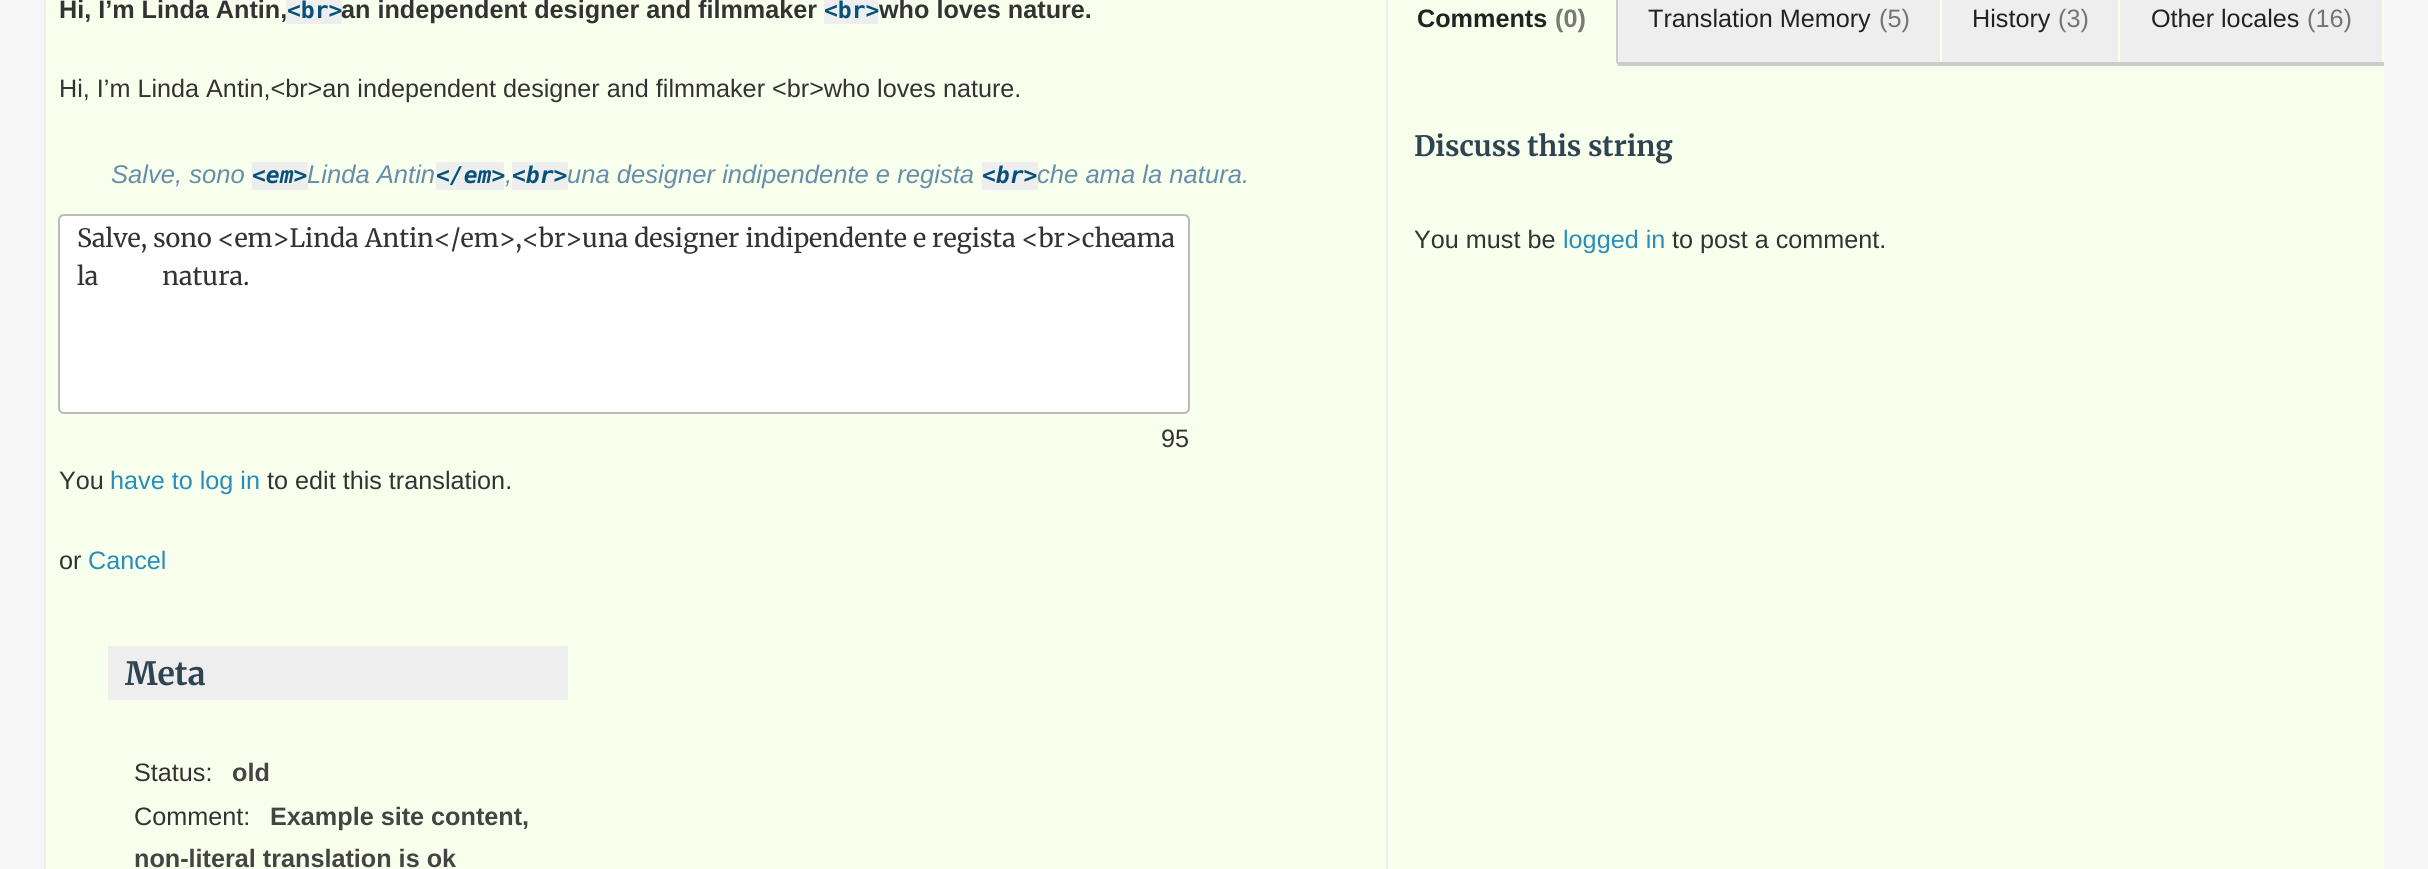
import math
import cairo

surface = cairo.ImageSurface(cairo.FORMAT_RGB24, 2428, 869)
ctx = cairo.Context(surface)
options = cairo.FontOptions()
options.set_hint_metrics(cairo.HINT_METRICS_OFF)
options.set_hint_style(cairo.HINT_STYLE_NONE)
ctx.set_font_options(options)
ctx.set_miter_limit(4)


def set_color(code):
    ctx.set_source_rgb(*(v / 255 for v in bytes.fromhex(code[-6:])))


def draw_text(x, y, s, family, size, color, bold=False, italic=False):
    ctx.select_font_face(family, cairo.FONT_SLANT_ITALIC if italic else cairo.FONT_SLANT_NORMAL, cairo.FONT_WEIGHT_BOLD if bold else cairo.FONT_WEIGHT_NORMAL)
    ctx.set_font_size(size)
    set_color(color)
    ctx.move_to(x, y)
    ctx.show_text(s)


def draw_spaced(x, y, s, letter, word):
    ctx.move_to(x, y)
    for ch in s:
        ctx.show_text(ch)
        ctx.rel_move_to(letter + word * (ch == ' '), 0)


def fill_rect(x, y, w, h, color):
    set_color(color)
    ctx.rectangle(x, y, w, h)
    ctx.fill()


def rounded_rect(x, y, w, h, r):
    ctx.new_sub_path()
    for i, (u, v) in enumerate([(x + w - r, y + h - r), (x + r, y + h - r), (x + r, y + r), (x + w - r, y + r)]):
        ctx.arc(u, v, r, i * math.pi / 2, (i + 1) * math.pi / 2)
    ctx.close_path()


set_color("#f6f6f6")
ctx.paint()
fill_rect(46, 0, 2338, 869, "#f8ffec")
ctx.rectangle(45, -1, 1342, 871)
set_color("#eeeeee")
ctx.stroke()
draw_text(59, 18, "Hi, I’m Linda Antin,", "Liberation Sans", 25.2, "#333333", bold=True)
fill_rect(286, 0, 56, 24, "#eeeeee")
draw_text(287, 18, "<br>", "DejaVu Sans Mono", 23, "#065177", bold=True)
draw_text(341, 18, "an independent designer and filmmaker", "Liberation Sans", 25.2, "#333333", bold=True)
fill_rect(824, 0, 54, 24, "#eeeeee")
draw_text(824, 18, "<br>", "DejaVu Sans Mono", 23, "#065177", bold=True)
draw_text(879, 18, "who loves nature.", "Liberation Sans", 25.2, "#333333", bold=True)
draw_text(59, 97, "Hi, I’m Linda Antin,<br>an independent designer and filmmaker <br>who loves nature.", "Liberation Sans", 25.2, "#333333")
draw_text(111, 183, "Salve, sono", "Liberation Sans", 25.6, "#668eaa", italic=True)
fill_rect(252, 162, 56, 28, "#eeeeee")
draw_text(252, 183, "<em>", "DejaVu Sans Mono", 23, "#065177", bold=True, italic=True)
draw_text(307, 183, "Linda Antin", "Liberation Sans", 25.6, "#668eaa", italic=True)
fill_rect(436, 162, 68, 28, "#eeeeee")
draw_text(436, 183, "</em>", "DejaVu Sans Mono", 23, "#065177", bold=True, italic=True)
draw_text(505, 183, ",", "Liberation Sans", 25.6, "#668eaa", italic=True)
fill_rect(512, 162, 56, 28, "#eeeeee")
draw_text(512, 183, "<br>", "DejaVu Sans Mono", 23, "#065177", bold=True, italic=True)
draw_text(567, 183, "una designer indipendente e regista", "Liberation Sans", 25.6, "#668eaa", italic=True)
fill_rect(982, 162, 56, 28, "#eeeeee")
draw_text(982, 183, "<br>", "DejaVu Sans Mono", 23, "#065177", bold=True, italic=True)
draw_text(1037, 183, "che ama la natura.", "Liberation Sans", 25.6, "#668eaa", italic=True)
set_color("#ffffff")
rounded_rect(59, 215, 1130, 198, 5)
ctx.fill_preserve()
set_color("#bbbbbb")
ctx.stroke()
draw_text(77, 247, "Salve, sono <em>Linda Antin</em>,<br>una designer indipendente e regista <br>che", "Merriweather", 25.2, "#333333")
draw_text(1123, 247, "ama", "Merriweather", 25.2, "#333333")
draw_spaced(77, 285, "la natura.", 0, 58)
draw_text(1161, 447, "95", "Liberation Sans", 25.2, "#333333")
draw_text(59, 489, "You", "Liberation Sans", 25.2, "#333333")
draw_text(110, 489, "have to log in", "Liberation Sans", 25.2, "#278dbc")
draw_text(267, 489, "to edit this translation.", "Liberation Sans", 25.2, "#333333")
draw_text(59, 569, "or", "Liberation Sans", 25.2, "#333333")
draw_text(88, 569, "Cancel", "Liberation Sans", 25.2, "#278dbc")
fill_rect(108, 646, 460, 54, "#eeeeee")
draw_text(125, 685, "Meta", "Merriweather", 32, "#2e4453", bold=True)
draw_text(134, 781, "Status:", "Liberation Sans", 25.2, "#333333")
draw_text(232, 781, "old", "Liberation Sans", 25.2, "#444444", bold=True)
draw_text(134, 825, "Comment:", "Liberation Sans", 25.2, "#333333")
draw_text(270, 825, "Example site content,", "Liberation Sans", 25.2, "#444444", bold=True)
draw_text(134, 867, "non-literal translation is ok", "Liberation Sans", 25.2, "#444444", bold=True)
fill_rect(1616, 62, 768, 4, "#cccccc")
ctx.new_path()
ctx.move_to(1618, -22)
ctx.line_to(1618, 66)
ctx.line_to(1616, 62)
ctx.line_to(1616, -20)
ctx.close_path()
ctx.fill()
set_color("#f8ffec")
ctx.new_path()
ctx.move_to(1618, 66)
ctx.line_to(1388, 66)
ctx.line_to(1388, 62)
ctx.line_to(1616, 62)
ctx.close_path()
ctx.fill()
draw_text(1417, 27, "Comments", "Liberation Sans", 25.2, "#222222", bold=True)
draw_text(1555, 27, "(0)", "Liberation Sans", 25.2, "#787a73", bold=True)
fill_rect(1618, 0, 322, 62, "#eeeeee")
draw_text(1648, 27, "Translation Memory", "Liberation Sans", 25.2, "#222222")
draw_text(1879, 27, "(5)", "Liberation Sans", 25.2, "#747474")
fill_rect(1942, 0, 176, 62, "#eeeeee")
draw_text(1972, 27, "History", "Liberation Sans", 25.2, "#222222")
draw_text(2058, 27, "(3)", "Liberation Sans", 25.2, "#747474")
fill_rect(2120, 0, 262, 62, "#eeeeee")
draw_text(2151, 27, "Other locales", "Liberation Sans", 25.2, "#222222")
draw_text(2307, 27, "(16)", "Liberation Sans", 25.2, "#747474")
draw_text(1414, 156, "Discuss this string", "Merriweather", 28, "#2e4453", bold=True)
draw_text(1414, 248, "You must be", "Liberation Sans", 25.2, "#333333")
draw_text(1563, 248, "logged in", "Liberation Sans", 25.2, "#278dbc")
draw_text(1672, 248, "to post a comment.", "Liberation Sans", 25.2, "#333333")
surface.write_to_png("output.png")
